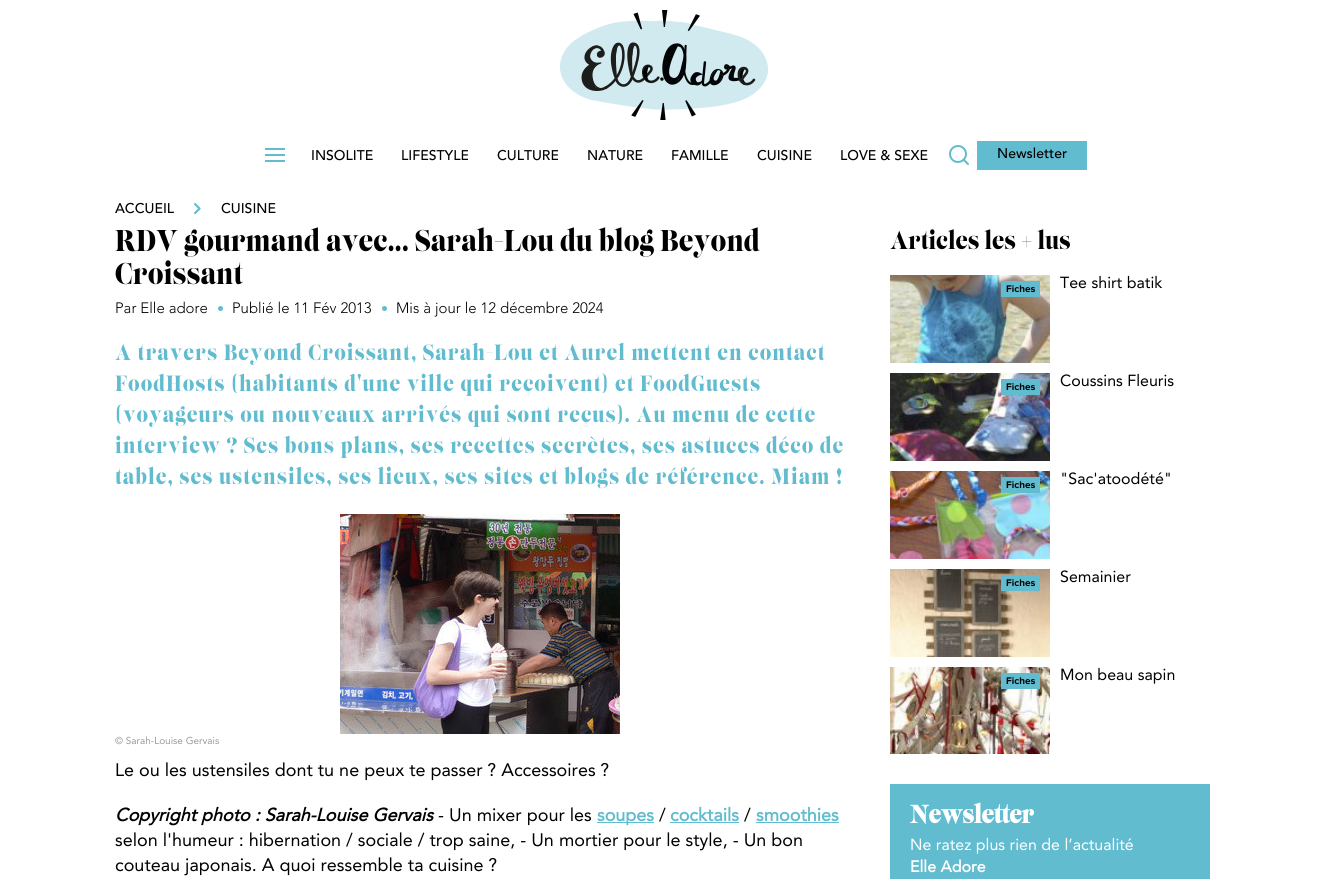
import math
import cairo

surface = cairo.ImageSurface(cairo.FORMAT_RGB24, 1340, 879)
ctx = cairo.Context(surface)
options = cairo.FontOptions()
options.set_hint_metrics(cairo.HINT_METRICS_OFF)
options.set_hint_style(cairo.HINT_STYLE_NONE)
ctx.set_font_options(options)
ctx.set_miter_limit(4)


def set_color(code):
    ctx.set_source_rgb(*(v / 255 for v in bytes.fromhex(code[-6:])))


def draw_text(x, y, s, family, size, color, bold=False, italic=False):
    ctx.select_font_face(family, cairo.FONT_SLANT_ITALIC if italic else cairo.FONT_SLANT_NORMAL, cairo.FONT_WEIGHT_BOLD if bold else cairo.FONT_WEIGHT_NORMAL)
    ctx.set_font_size(size)
    set_color(color)
    ctx.move_to(x, y)
    ctx.show_text(s)


def draw_spaced(x, y, s, letter, word):
    ctx.move_to(x, y)
    for ch in s:
        ctx.show_text(ch)
        ctx.rel_move_to(letter + word * (ch == ' '), 0)


def fill_rect(x, y, w, h, color):
    set_color(color)
    ctx.rectangle(x, y, w, h)
    ctx.fill()


def draw_image(path, x, y, w, h):
    ctx.save()
    ctx.set_source_surface(cairo.ImageSurface.create_from_png(path), x, y)
    ctx.rectangle(x, y, w, h)
    ctx.fill()
    ctx.restore()


set_color("#ffffff")
ctx.paint()
draw_image("assets/img1.png", 560, 10, 208, 110)
fill_rect(265, 148, 20, 2, "#61bccf")
fill_rect(265, 154, 20, 2, "#61bccf")
fill_rect(265, 160, 20, 2, "#61bccf")
draw_text(311, 160, "INSOLITE", "Avenir Medium", 14, "#000000")
draw_text(401, 160, "LIFESTYLE", "Avenir Medium", 14, "#000000")
draw_text(497, 160, "CULTURE", "Avenir Medium", 14, "#000000")
draw_text(587, 160, "NATURE", "Avenir Medium", 14, "#000000")
draw_text(671, 160, "FAMILLE", "Avenir Medium", 14, "#000000")
draw_text(757, 160, "CUISINE", "Avenir Medium", 14, "#000000")
draw_text(840, 160, "LOVE & SEXE", "Avenir Medium", 14, "#000000")
ctx.new_path()
ctx.arc(958, 154, 8, 0, 2 * math.pi)
set_color("#61bccf")
ctx.stroke()
ctx.new_path()
ctx.move_to(968, 164)
ctx.line_to(963.5, 159.5)
ctx.set_line_cap(cairo.LINE_CAP_ROUND)
ctx.set_line_join(cairo.LINE_JOIN_ROUND)
ctx.stroke()
fill_rect(977, 141, 110, 29, "#61bccf")
draw_text(997, 158, "Newsletter", "Avenir Medium", 14, "#000000")
draw_text(115, 213, "ACCUEIL", "Avenir Medium", 14, "#000000")
draw_image("assets/img2.png", 194, 203, 7, 11)
draw_text(221, 213, "CUISINE", "Avenir Medium", 14, "#000000")
draw_text(115, 251, "RDV gourmand avec... Sarah-Lou du blog Beyond", "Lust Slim", 30, "#000000")
draw_text(115, 284, "Croissant", "Lust Slim", 30, "#000000")
draw_text(115, 313, "Par Elle adore", "Avenir Light", 15, "#000000")
set_color("#61bccf")
ctx.new_path()
ctx.arc(220.5, 308.5, 2.5, 0, 2 * math.pi)
ctx.fill()
draw_text(232, 313, "Publié le 11 Fév 2013", "Avenir Light", 15, "#000000")
set_color("#61bccf")
ctx.new_path()
ctx.arc(384.5, 308.5, 2.5, 0, 2 * math.pi)
ctx.fill()
draw_text(396, 313, "Mis à jour le 12 décembre 2024", "Avenir Light", 15, "#000000")
ctx.select_font_face("Lust Slim")
ctx.set_font_size(22)
set_color("#61bccf")
draw_spaced(115, 360, "A travers Beyond Croissant, Sarah-Lou et Aurel mettent en contact", 1, 0)
draw_spaced(115, 391, "FoodHosts (habitants d'une ville qui reçoivent) et FoodGuests", 1, 0)
draw_spaced(115, 422, "(voyageurs ou nouveaux arrivés qui sont reçus). Au menu de cette", 1, 0)
draw_spaced(115, 453, "interview ? Ses bons plans, ses recettes secrètes, ses astuces déco de", 1, 0)
draw_spaced(115, 484, "table, ses ustensiles, ses lieux, ses sites et blogs de référence. Miam !", 1, 0)
draw_image("assets/img3.png", 340, 514, 280, 220)
draw_text(115, 744, "© Sarah-Louise Gervais", "Avenir", 10, "#9b9b9b")
draw_text(115, 776, "Le ou les ustensiles dont tu ne peux te passer ? Accessoires ?", "Avenir", 18, "#000000")
draw_text(115, 821, "Copyright photo : Sarah-Louise Gervais", "Avenir", 18, "#000000", bold=True, italic=True)
draw_text(438, 821, "- Un mixer pour les", "Avenir", 18, "#000000")
fill_rect(597, 822, 57, 1, "#61bccf")
draw_text(597, 821, "soupes", "Avenir", 18, "#61bccf", bold=True)
draw_text(659, 821, "/", "Avenir", 18, "#000000")
draw_text(670, 821, "cocktails", "Avenir", 18, "#61bccf", bold=True)
fill_rect(670, 822, 69, 1, "#61bccf")
draw_text(744, 821, "/", "Avenir", 18, "#000000")
draw_text(756, 821, "smoothies", "Avenir", 18, "#61bccf", bold=True)
fill_rect(756, 822, 83, 1, "#61bccf")
draw_text(115, 846, "selon l'humeur : hibernation / sociale / trop saine, - Un mortier pour le style, - Un bon", "Avenir", 18, "#000000")
draw_text(115, 871, "couteau japonais. A quoi ressemble ta cuisine ?", "Avenir", 18, "#000000")
draw_text(890, 249, "Articles les + lus", "Lust Slim", 25, "#000000")
draw_image("assets/img4.png", 890, 275, 160, 88)
fill_rect(1001, 281, 39, 16, "#61bccf")
draw_image("assets/img5.png", 1006, 285, 29, 8)
draw_text(1060, 288, "Tee shirt batik", "Avenir", 16, "#000000")
draw_image("assets/img6.png", 890, 373, 160, 88)
fill_rect(1001, 379, 39, 16, "#61bccf")
draw_image("assets/img5.png", 1006, 383, 29, 8)
draw_text(1060, 386, "Coussins Fleuris", "Avenir", 16, "#000000")
draw_image("assets/img7.png", 890, 471, 160, 88)
fill_rect(1001, 477, 39, 16, "#61bccf")
draw_image("assets/img5.png", 1006, 481, 29, 8)
draw_text(1060, 484, "\"Sac'atoodété\"", "Avenir", 16, "#000000")
draw_image("assets/img8.png", 890, 569, 160, 88)
fill_rect(1001, 575, 39, 16, "#61bccf")
draw_image("assets/img5.png", 1006, 579, 29, 8)
draw_text(1060, 582, "Semainier", "Avenir", 16, "#000000")
draw_image("assets/img9.png", 890, 667, 160, 87)
fill_rect(1001, 673, 39, 16, "#61bccf")
draw_image("assets/img5.png", 1006, 677, 29, 8)
draw_text(1060, 680, "Mon beau sapin", "Avenir", 16, "#000000")
fill_rect(890, 784, 320, 95, "#61bccf")
draw_text(910, 823, "Newsletter", "Lust Slim", 25, "#ffffff", bold=True)
draw_text(910, 850, "Ne ratez plus rien de l’actualité", "Avenir", 16, "#ffffff")
draw_text(910, 872, "Elle Adore", "Avenir", 16, "#ffffff", bold=True)
surface.write_to_png("output.png")
